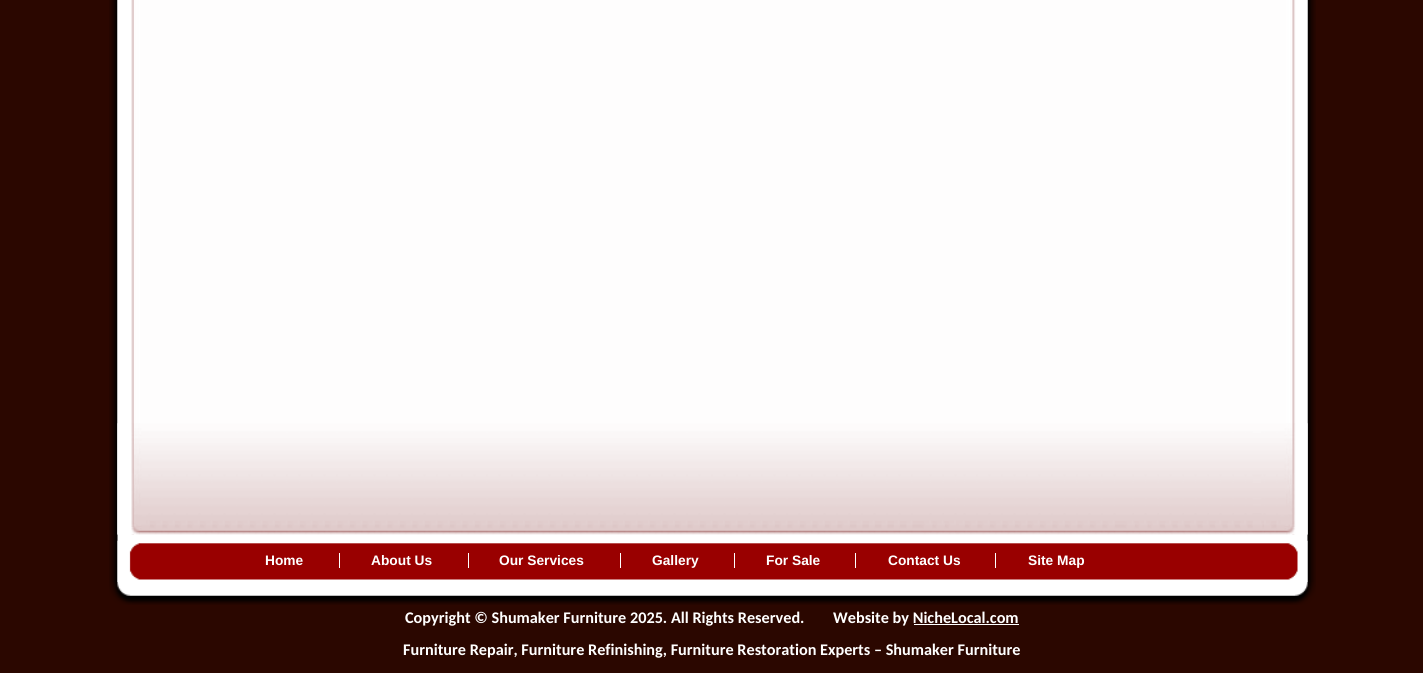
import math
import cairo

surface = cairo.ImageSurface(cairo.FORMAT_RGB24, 1423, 673)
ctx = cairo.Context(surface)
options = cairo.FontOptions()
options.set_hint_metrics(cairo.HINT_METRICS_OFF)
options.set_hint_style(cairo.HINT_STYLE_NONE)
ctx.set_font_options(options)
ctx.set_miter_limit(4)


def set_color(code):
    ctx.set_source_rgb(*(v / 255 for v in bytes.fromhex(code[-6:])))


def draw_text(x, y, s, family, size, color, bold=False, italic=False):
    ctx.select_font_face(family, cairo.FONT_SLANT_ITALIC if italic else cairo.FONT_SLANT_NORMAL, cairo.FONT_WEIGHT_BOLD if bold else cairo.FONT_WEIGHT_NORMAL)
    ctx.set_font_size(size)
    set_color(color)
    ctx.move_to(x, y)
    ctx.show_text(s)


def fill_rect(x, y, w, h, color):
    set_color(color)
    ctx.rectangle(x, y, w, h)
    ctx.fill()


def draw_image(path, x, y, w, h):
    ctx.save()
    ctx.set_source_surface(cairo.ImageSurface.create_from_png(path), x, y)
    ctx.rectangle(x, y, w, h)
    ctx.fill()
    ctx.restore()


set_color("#2b0700")
ctx.paint()
draw_image("assets/img1.png", 109, 0, 1207, 582)
draw_image("assets/img2.png", 117, 0, 1191, 535)
draw_image("assets/img3.png", 117, 423, 1191, 112)
draw_image("assets/img4.png", 117, 540, 1191, 42)
draw_text(265, 565, "Home", "Liberation Sans", 13.75, "#ffffff", bold=True)
draw_text(371, 565, "About Us", "Liberation Sans", 13.75, "#ffffff", bold=True)
fill_rect(339, 553, 1, 15, "#ffffff")
draw_text(499, 565, "Our Services", "Liberation Sans", 13.75, "#ffffff", bold=True)
fill_rect(468, 553, 1, 15, "#ffffff")
draw_text(652, 565, "Gallery", "Liberation Sans", 13.75, "#ffffff", bold=True)
fill_rect(620, 553, 1, 15, "#ffffff")
draw_text(766, 565, "For Sale", "Liberation Sans", 13.75, "#ffffff", bold=True)
fill_rect(734, 553, 1, 15, "#ffffff")
draw_text(888, 565, "Contact Us", "Liberation Sans", 13.75, "#ffffff", bold=True)
fill_rect(855, 553, 1, 15, "#ffffff")
draw_text(1028, 565, "Site Map", "Liberation Sans", 13.75, "#ffffff", bold=True)
fill_rect(995, 553, 1, 15, "#ffffff")
draw_image("assets/img5.png", 109, 582, 1207, 23)
draw_text(405, 623, "Copyright © Shumaker Furniture 2025. All Rights Reserved.", "Carlito", 16.25, "#ffffff", bold=True)
draw_text(833, 623, "Website by NicheLocal.com", "Carlito", 16.25, "#ffffff", bold=True)
fill_rect(914, 624, 105, 1, "#ffffff")
draw_text(403, 655, "Furniture Repair, Furniture Refinishing, Furniture Restoration Experts – Shumaker Furniture", "Carlito", 16.25, "#ffffff", bold=True)
surface.write_to_png("output.png")
